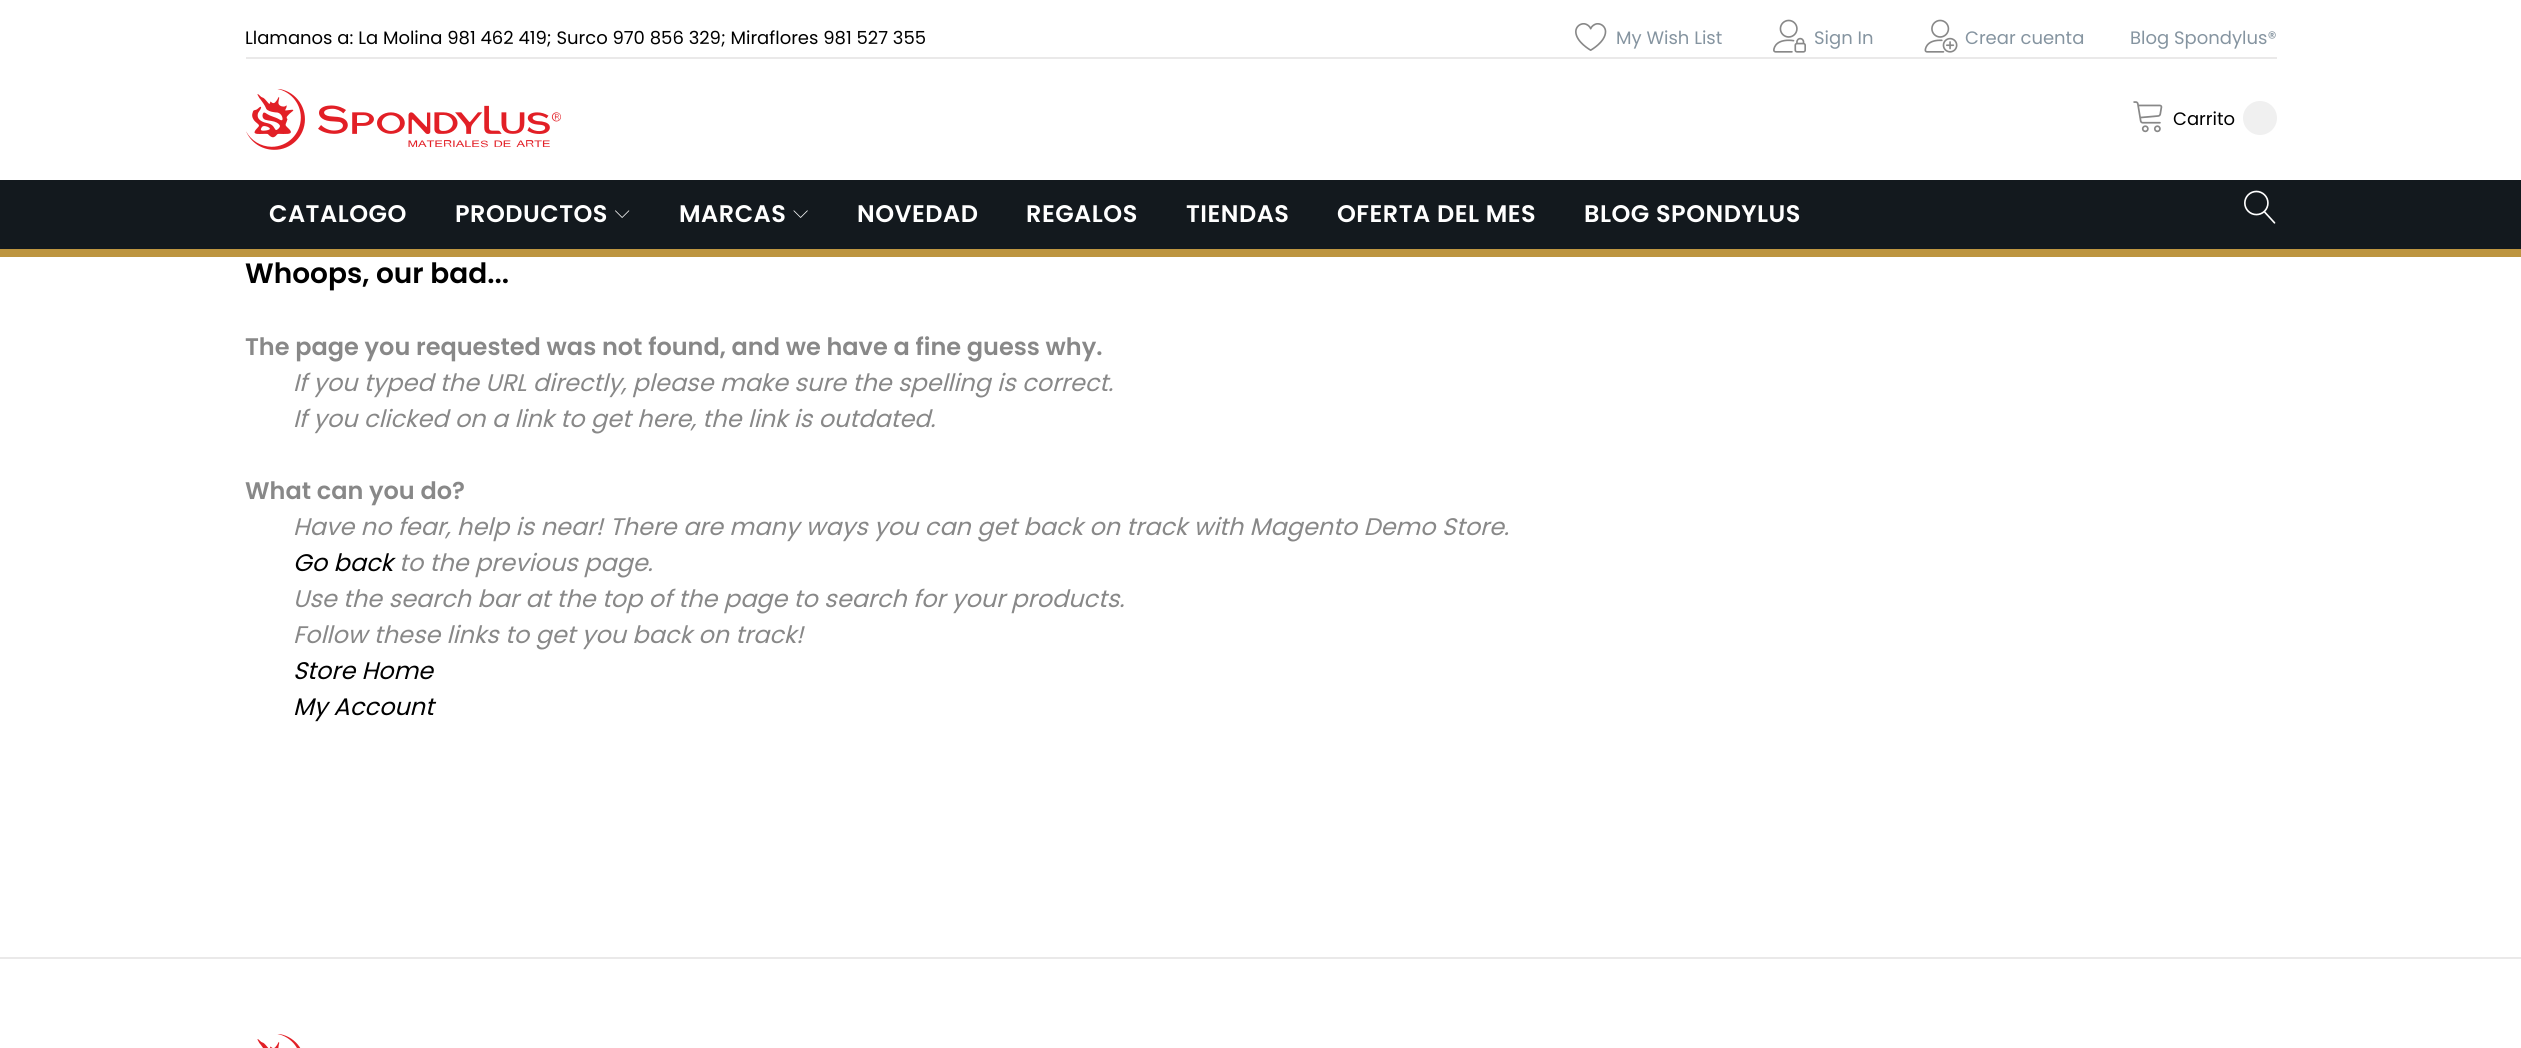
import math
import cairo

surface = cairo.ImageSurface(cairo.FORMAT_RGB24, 2521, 1048)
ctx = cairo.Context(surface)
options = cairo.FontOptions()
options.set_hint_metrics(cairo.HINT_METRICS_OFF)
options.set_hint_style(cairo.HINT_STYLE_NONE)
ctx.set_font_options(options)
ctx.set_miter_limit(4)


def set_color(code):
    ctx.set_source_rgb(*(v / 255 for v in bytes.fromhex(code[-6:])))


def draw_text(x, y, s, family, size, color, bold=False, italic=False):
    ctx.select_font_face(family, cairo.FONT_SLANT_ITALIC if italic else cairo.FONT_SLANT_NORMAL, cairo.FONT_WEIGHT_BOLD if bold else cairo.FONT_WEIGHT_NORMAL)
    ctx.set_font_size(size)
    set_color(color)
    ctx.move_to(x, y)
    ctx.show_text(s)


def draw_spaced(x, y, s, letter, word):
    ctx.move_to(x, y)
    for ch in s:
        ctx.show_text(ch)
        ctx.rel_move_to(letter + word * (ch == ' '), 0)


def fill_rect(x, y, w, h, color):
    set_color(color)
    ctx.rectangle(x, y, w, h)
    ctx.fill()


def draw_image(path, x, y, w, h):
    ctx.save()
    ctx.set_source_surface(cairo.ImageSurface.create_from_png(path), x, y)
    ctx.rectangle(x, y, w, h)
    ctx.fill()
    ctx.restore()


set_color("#ffffff")
ctx.paint()
fill_rect(246, 57, 2031, 2, "#eae9e9")
draw_text(245, 44, "Llamanos a: La Molina 981 462 419; Surco 970 856 329; Miraflores 981 527 355", "Poppins", 18, "#000000")
draw_image("assets/img1.png", 1575, 23, 32, 28)
draw_text(1616, 44, "My Wish List", "Poppins", 18, "#8594a0")
draw_image("assets/img2.png", 1773, 19, 33, 34)
draw_text(1814, 44, "Sign In", "Poppins", 18, "#8594a0")
draw_image("assets/img3.png", 1924, 19, 34, 34)
draw_text(1965, 44, "Crear cuenta", "Poppins", 18, "#8594a0")
draw_text(2130, 44, "Blog Spondylus®", "Poppins", 18, "#8594a0")
draw_image("assets/img4.png", 246, 89, 315, 61)
draw_image("assets/img5.png", 2133, 101, 30, 32)
draw_text(2173, 125, "Carrito", "Poppins", 18, "#000000")
set_color("#f0f0f0")
ctx.new_path()
ctx.arc(2260, 118, 17, 0, 2 * math.pi)
ctx.fill()
fill_rect(0, 180, 2521, 69, "#13191e")
fill_rect(0, 249, 2521, 8, "#bd9540")
ctx.select_font_face("Poppins SemiBold")
ctx.set_font_size(24)
set_color("#ffffff")
draw_spaced(269, 222, "CATALOGO", 0.5, 0)
draw_spaced(455, 222, "PRODUCTOS", 0.5, 0)
draw_image("assets/img6.png", 615, 210, 15, 8)
draw_spaced(679, 222, "MARCAS", 0.5, 0)
draw_image("assets/img7.png", 793, 210, 15, 8)
draw_spaced(857, 222, "NOVEDAD", 0.5, 0)
draw_spaced(1026, 222, "REGALOS", 0.5, 0)
draw_spaced(1186, 222, "TIENDAS", 0.5, 0)
draw_spaced(1337, 222, "OFERTA DEL MES", 0.5, 0)
draw_spaced(1584, 222, "BLOG SPONDYLUS", 0.5, 0)
draw_image("assets/img8.png", 2244, 190, 32, 34)
draw_text(245, 283, "Whoops, our bad...", "Poppins SemiBold", 28, "#000000")
draw_text(245, 355, "The page you requested was not found, and we have a fine guess why.", "Poppins SemiBold", 24, "#888888")
draw_text(293, 391, "If you typed the URL directly, please make sure the spelling is correct.", "Poppins", 24, "#888888", italic=True)
draw_text(293, 427, "If you clicked on a link to get here, the link is outdated.", "Poppins", 24, "#888888", italic=True)
draw_text(245, 499, "What can you do?", "Poppins SemiBold", 24, "#888888")
draw_text(293, 535, "Have no fear, help is near! There are many ways you can get back on track with Magento Demo Store.", "Poppins", 24, "#888888", italic=True)
draw_text(293, 571, "Go back", "Poppins", 24, "#000000", italic=True)
draw_text(399, 571, "to the previous page.", "Poppins", 24, "#888888", italic=True)
draw_text(293, 607, "Use the search bar at the top of the page to search for your products.", "Poppins", 24, "#888888", italic=True)
draw_text(293, 643, "Follow these links to get you back on track!", "Poppins", 24, "#888888", italic=True)
draw_text(293, 679, "Store Home", "Poppins", 24, "#000000", italic=True)
draw_text(293, 715, "My Account", "Poppins", 24, "#000000", italic=True)
fill_rect(0, 957, 2521, 2, "#eae9e9")
draw_image("assets/img9.png", 257, 1034, 44, 14)
surface.write_to_png("output.png")
